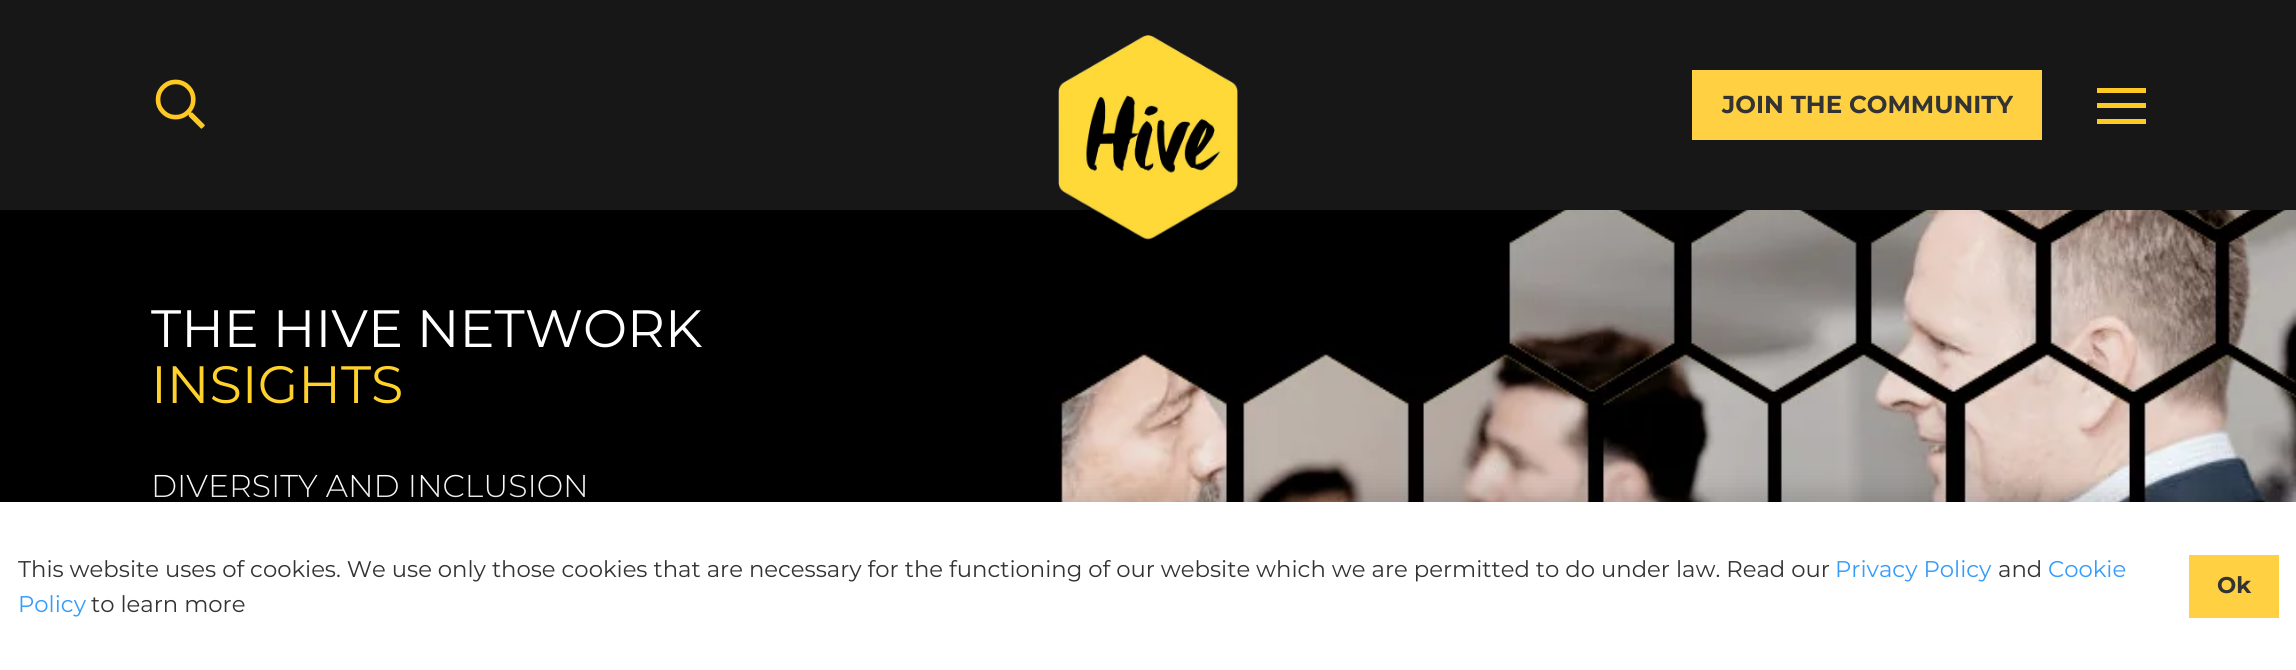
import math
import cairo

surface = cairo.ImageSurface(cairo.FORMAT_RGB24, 2296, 670)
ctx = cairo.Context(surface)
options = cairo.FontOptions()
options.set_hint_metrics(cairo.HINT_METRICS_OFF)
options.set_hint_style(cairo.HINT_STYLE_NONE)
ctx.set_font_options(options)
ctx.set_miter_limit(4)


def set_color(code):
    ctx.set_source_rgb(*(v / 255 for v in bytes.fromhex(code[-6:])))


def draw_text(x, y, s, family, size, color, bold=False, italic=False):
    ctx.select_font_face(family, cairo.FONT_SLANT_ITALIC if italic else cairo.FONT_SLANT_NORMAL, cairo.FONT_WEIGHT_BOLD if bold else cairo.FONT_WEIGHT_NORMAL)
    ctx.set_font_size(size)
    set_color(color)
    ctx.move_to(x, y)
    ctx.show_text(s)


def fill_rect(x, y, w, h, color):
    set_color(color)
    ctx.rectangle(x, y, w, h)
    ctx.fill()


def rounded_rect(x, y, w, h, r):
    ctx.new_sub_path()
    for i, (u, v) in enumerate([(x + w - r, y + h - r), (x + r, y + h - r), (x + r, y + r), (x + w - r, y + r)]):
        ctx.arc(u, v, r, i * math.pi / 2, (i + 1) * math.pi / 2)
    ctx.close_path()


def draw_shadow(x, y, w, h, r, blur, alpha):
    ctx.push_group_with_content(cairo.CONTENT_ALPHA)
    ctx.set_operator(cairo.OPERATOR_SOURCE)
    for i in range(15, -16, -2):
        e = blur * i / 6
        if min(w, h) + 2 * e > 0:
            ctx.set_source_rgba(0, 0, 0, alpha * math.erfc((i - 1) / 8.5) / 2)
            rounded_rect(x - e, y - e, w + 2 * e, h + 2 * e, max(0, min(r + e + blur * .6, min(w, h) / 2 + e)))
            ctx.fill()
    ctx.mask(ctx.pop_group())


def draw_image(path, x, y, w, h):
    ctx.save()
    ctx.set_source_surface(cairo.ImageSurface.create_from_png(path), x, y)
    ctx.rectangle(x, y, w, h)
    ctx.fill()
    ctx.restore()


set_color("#ffffff")
ctx.paint()
fill_rect(0, 0, 2296, 210, "#171717")
draw_image("assets/img1.png", 155, 79, 50, 50)
draw_image("assets/img3.png", 0, 210, 2296, 292)
draw_image("assets/img2.png", 1058, 35, 180, 205)
fill_rect(1692, 70, 350, 70, "#ffd042")
draw_text(1722, 113, "JOIN THE COMMUNITY", "Montserrat", 24.5, "#333333", bold=True)
fill_rect(2097, 103, 49, 5, "#ffc923")
fill_rect(2097, 88, 49, 5, "#ffc923")
fill_rect(2097, 119, 49, 5, "#ffc923")
draw_text(151, 347, "THE HIVE NETWORK", "Montserrat", 52.5, "#ffffff")
draw_text(151, 403, "INSIGHTS", "Montserrat", 52.5, "#ffd12c")
draw_text(151, 497, "DIVERSITY AND INCLUSION", "Montserrat Light", 31.5, "#ffffff")
set_color("#000000")
draw_shadow(0, 494, 2296, 168, 0, 13, 0.15)
fill_rect(0, 502, 2296, 168, "#ffffff")
draw_text(18, 577, "This website uses of cookies. We use only those cookies that are necessary for the functioning of our website which we are permitted to do under law. Read our", "Montserrat", 22.75, "#333333")
draw_text(1835, 577, "Privacy Policy", "Montserrat", 22.75, "#359cf9")
draw_text(1998, 577, "and", "Montserrat", 22.75, "#333333")
draw_text(2048, 577, "Cookie", "Montserrat", 22.75, "#359cf9")
draw_text(18, 612, "Policy", "Montserrat", 22.75, "#359cf9")
draw_text(91, 612, "to learn more", "Montserrat", 22.75, "#333333")
fill_rect(2189, 555, 90, 63, "#ffd042")
draw_text(2217, 593, "Ok", "Montserrat", 22.75, "#333333", bold=True)
surface.write_to_png("output.png")
